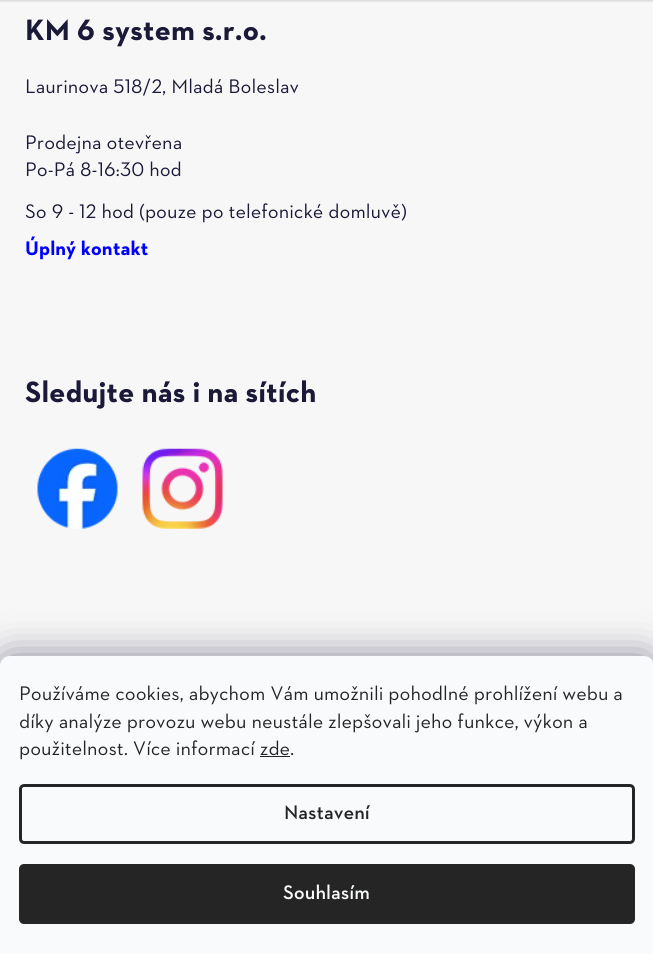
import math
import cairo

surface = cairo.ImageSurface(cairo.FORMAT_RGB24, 653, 954)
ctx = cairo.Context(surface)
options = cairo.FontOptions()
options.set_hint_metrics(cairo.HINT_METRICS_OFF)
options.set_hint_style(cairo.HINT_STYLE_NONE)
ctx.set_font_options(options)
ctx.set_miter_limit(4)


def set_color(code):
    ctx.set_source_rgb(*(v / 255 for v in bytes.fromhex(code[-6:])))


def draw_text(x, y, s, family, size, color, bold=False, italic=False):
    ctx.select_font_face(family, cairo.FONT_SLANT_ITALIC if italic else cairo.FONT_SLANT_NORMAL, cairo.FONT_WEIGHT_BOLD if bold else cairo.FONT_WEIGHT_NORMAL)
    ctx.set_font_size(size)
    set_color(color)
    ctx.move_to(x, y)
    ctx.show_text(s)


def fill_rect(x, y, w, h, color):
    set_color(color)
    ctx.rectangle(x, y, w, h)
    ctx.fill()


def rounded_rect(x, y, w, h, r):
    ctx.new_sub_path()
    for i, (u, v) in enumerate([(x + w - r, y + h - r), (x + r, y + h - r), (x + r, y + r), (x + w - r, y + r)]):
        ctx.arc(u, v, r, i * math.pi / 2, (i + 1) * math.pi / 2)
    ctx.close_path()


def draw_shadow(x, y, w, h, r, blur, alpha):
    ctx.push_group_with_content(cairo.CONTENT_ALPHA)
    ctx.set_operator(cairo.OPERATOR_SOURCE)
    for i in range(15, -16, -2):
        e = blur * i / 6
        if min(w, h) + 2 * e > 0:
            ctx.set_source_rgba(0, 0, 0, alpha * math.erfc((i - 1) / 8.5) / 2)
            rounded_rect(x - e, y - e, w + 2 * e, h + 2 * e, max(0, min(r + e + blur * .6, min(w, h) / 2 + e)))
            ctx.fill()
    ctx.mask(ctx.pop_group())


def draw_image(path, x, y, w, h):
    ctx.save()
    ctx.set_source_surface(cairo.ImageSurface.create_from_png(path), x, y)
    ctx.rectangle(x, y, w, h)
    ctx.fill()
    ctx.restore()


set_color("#f7f7f7")
ctx.paint()
set_color("#000000")
draw_shadow(0, -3, 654, 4, 0, 1, 0.16)
draw_text(25, 40, "KM 6 system s.r.o.", "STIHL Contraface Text", 30, "#1a1937", bold=True)
draw_text(25, 93, "Laurinova 518/2, Mladá Boleslav", "STIHL Contraface Text", 20, "#1a1937")
draw_text(25, 149, "Prodejna otevřena", "STIHL Contraface Text", 20, "#1a1937")
draw_text(25, 176, "Po-Pá 8-16:30 hod", "STIHL Contraface Text", 20, "#1a1937")
draw_text(25, 218, "So 9 - 12 hod (pouze po telefonické domluvě)", "STIHL Contraface Text", 20, "#1a1937")
draw_text(25, 255, "Úplný kontakt", "STIHL Contraface Text", 20, "#0000ff", bold=True)
draw_text(25, 402, "Sledujte nás i na sítích", "STIHL Contraface Text", 30, "#1a1937", bold=True)
draw_image("assets/img1.png", 37, 448, 81, 81)
draw_image("assets/img2.png", 142, 448, 81, 81)
set_color("#1b1939")
draw_shadow(0, 656, 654, 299, 10, 19, 0.5)
set_color("#f8fafb")
ctx.new_path()
ctx.move_to(10, 656)
ctx.line_to(644, 656)
ctx.curve_to(649.5, 656, 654, 660.5, 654, 666)
ctx.line_to(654, 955)
ctx.line_to(0, 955)
ctx.line_to(0, 666)
ctx.curve_to(0, 660.5, 4.5, 656, 10, 656)
ctx.close_path()
ctx.fill()
draw_text(19, 700, "Používáme cookies, abychom Vám umožnili pohodlné prohlížení webu a", "STIHL Contraface Text", 20, "#252525")
draw_text(19, 728, "díky analýze provozu webu neustále zlepšovali jeho funkce, výkon a", "STIHL Contraface Text", 20, "#252525")
draw_text(19, 755, "použitelnost. Více informací zde.", "STIHL Contraface Text", 20, "#252525")
fill_rect(260, 756, 30, 1, "#252525")
rounded_rect(20.5, 785.5, 613, 57, 3.5)
ctx.set_line_width(3)
ctx.stroke()
draw_text(284, 819, "Nastavení", "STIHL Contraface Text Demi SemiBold", 20, "#252525")
rounded_rect(19, 864, 616, 60, 5)
ctx.fill()
draw_text(283, 899, "Souhlasím", "STIHL Contraface Text Demi SemiBold", 20, "#f8fafb")
surface.write_to_png("output.png")
